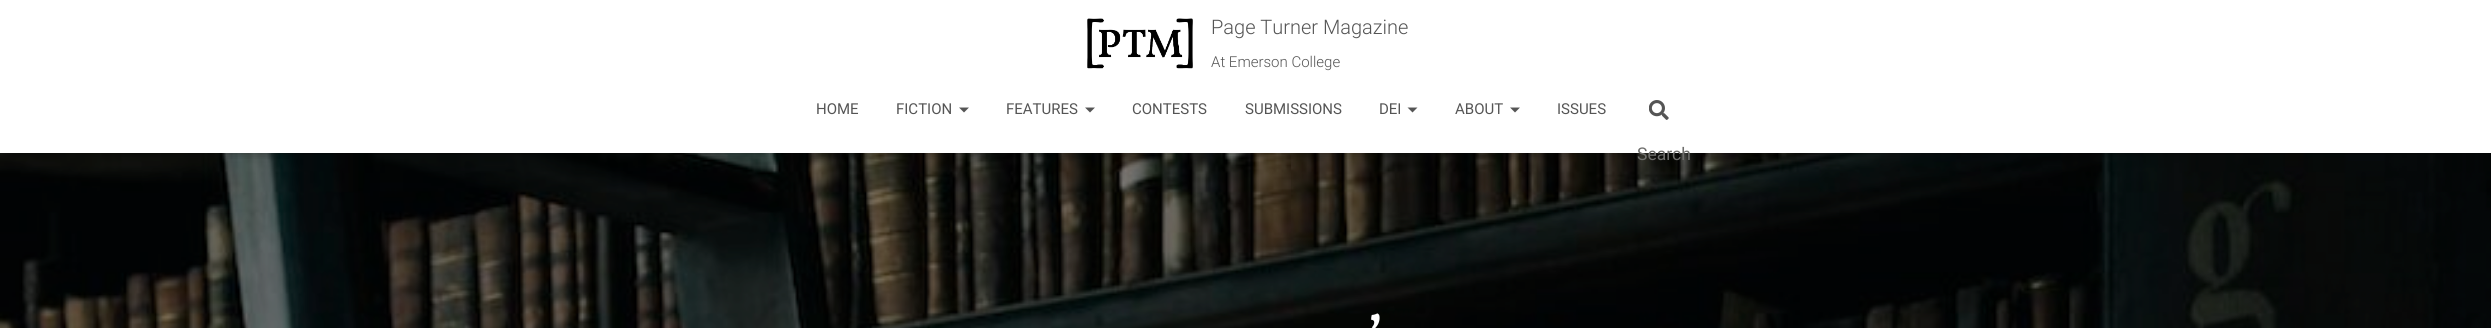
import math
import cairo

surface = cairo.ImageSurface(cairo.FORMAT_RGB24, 2491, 328)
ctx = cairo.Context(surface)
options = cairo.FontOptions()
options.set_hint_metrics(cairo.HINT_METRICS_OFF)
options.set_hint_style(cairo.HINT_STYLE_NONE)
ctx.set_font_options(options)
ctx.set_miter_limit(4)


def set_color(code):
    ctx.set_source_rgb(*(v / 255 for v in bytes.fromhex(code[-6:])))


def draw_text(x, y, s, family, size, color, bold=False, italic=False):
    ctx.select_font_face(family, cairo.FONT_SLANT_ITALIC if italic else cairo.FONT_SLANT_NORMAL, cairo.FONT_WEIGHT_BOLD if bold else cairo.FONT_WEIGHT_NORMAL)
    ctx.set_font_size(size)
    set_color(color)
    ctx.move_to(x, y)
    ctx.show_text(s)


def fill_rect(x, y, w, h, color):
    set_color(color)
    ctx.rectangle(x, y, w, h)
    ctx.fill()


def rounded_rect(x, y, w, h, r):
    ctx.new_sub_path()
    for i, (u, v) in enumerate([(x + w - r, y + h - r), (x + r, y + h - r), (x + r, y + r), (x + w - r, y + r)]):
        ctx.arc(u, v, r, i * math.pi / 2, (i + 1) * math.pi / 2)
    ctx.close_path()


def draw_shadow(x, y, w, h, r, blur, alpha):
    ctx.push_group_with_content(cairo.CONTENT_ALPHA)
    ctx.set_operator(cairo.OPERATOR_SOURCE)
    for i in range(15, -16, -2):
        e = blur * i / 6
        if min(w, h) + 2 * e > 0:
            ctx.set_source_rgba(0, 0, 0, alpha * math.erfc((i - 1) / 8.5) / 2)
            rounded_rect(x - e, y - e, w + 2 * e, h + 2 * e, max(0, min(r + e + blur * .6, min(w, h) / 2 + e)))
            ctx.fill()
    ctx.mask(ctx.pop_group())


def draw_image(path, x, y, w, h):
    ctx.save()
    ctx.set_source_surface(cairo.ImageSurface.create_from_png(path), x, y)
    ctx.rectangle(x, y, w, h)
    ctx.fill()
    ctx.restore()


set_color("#ffffff")
ctx.paint()
draw_image("assets/img3.png", 0, 153, 2491, 175)
set_color("#000000")
draw_shadow(3, 8, 2486, 147, 0, 3, 0.1)
draw_shadow(0, 1, 2491, 153, 0, 6, 0.12)
draw_shadow(8, 9, 2476, 137, 0, 6, 0.42)
fill_rect(0, 0, 2491, 153, "#ffffff")
draw_image("assets/img1.png", 1087, 18, 106, 51)
draw_text(1211, 34, "Page Turner Magazine", "Roboto Light", 20, "#555555")
draw_text(1211, 67, "At Emerson College", "Roboto Light", 15, "#555555")
draw_text(816, 114, "HOME", "Roboto", 15, "#555555")
draw_text(896, 114, "FICTION", "Roboto", 15, "#555555")
ctx.new_path()
ctx.move_to(959, 107.5)
ctx.line_to(969, 107.5)
ctx.line_to(964, 112.5)
ctx.close_path()
ctx.fill()
draw_text(1006, 114, "FEATURES", "Roboto", 15, "#555555")
ctx.new_path()
ctx.move_to(1085, 107.5)
ctx.line_to(1095, 107.5)
ctx.line_to(1090, 112.5)
ctx.close_path()
ctx.fill()
draw_text(1132, 114, "CONTESTS", "Roboto", 15, "#555555")
draw_text(1245, 114, "SUBMISSIONS", "Roboto", 15, "#555555")
draw_text(1379, 114, "DEI", "Roboto", 15, "#555555")
ctx.new_path()
ctx.move_to(1407.5, 107.5)
ctx.line_to(1417.5, 107.5)
ctx.line_to(1412.5, 112.5)
ctx.close_path()
ctx.fill()
draw_text(1455, 114, "ABOUT", "Roboto", 15, "#555555")
ctx.new_path()
ctx.move_to(1510, 107.5)
ctx.line_to(1520, 107.5)
ctx.line_to(1515, 112.5)
ctx.close_path()
ctx.fill()
draw_text(1557, 114, "ISSUES", "Roboto", 15, "#555555")
draw_image("assets/img2.png", 1649, 100, 20, 20)
draw_text(1637, 160, "Search", "Roboto", 17.5, "#6e6e6c")
draw_text(1368, 351, "’", "Vollkorn SC", 52, "#ffffff", bold=True)
surface.write_to_png("output.png")
